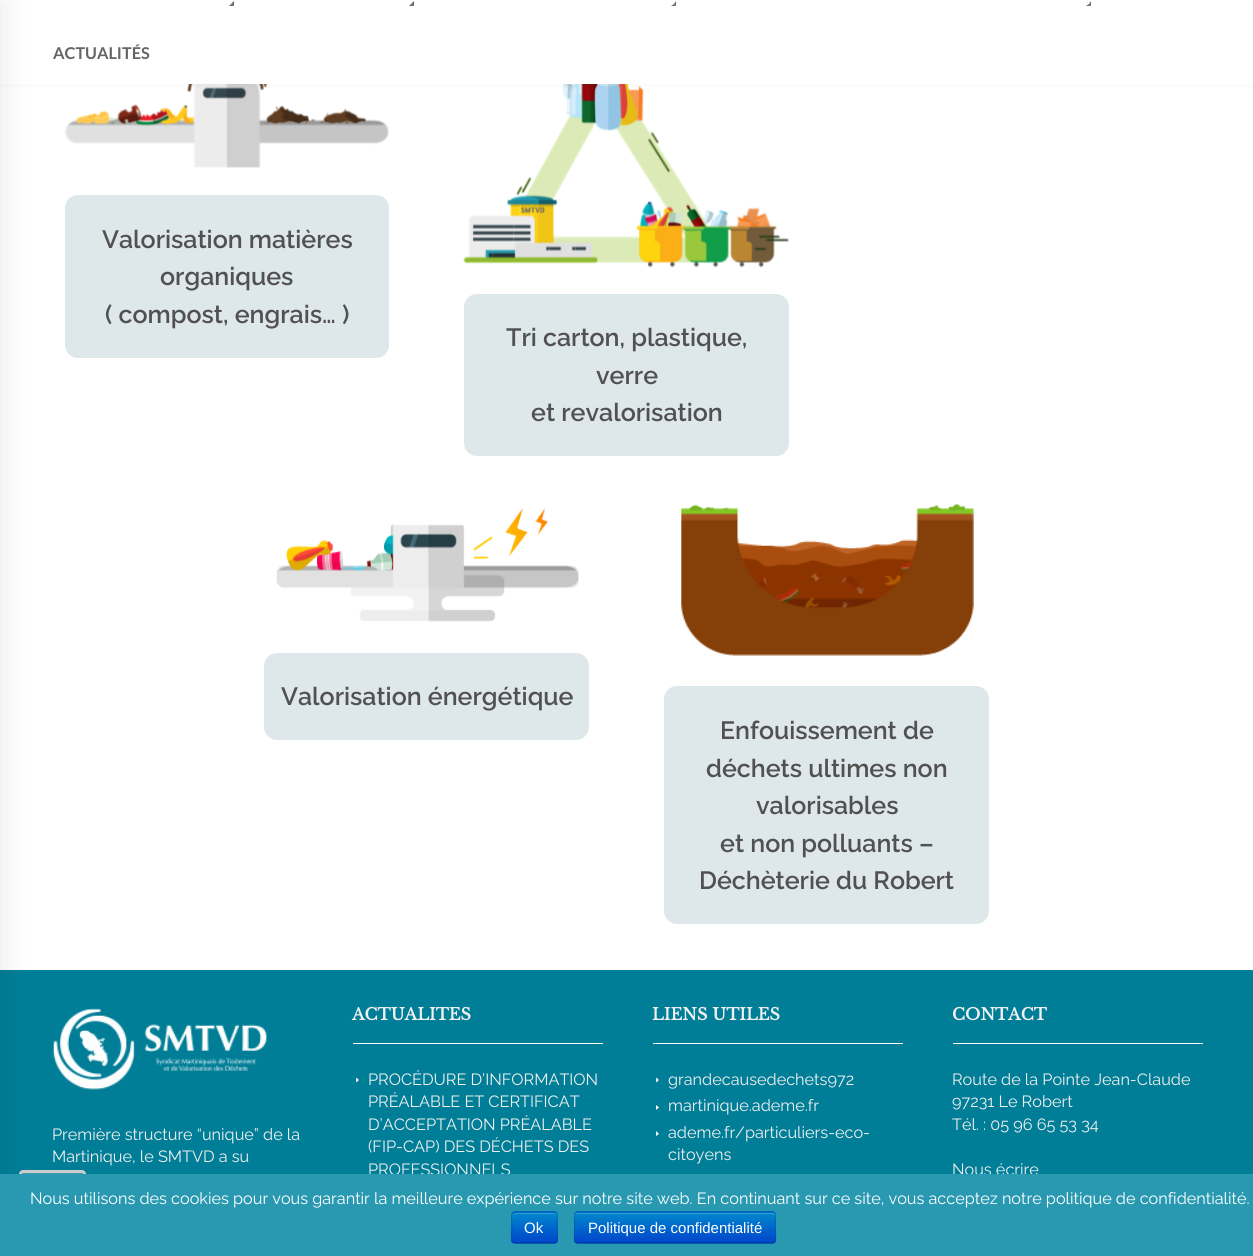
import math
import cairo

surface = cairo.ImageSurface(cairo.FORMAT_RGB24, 1253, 1256)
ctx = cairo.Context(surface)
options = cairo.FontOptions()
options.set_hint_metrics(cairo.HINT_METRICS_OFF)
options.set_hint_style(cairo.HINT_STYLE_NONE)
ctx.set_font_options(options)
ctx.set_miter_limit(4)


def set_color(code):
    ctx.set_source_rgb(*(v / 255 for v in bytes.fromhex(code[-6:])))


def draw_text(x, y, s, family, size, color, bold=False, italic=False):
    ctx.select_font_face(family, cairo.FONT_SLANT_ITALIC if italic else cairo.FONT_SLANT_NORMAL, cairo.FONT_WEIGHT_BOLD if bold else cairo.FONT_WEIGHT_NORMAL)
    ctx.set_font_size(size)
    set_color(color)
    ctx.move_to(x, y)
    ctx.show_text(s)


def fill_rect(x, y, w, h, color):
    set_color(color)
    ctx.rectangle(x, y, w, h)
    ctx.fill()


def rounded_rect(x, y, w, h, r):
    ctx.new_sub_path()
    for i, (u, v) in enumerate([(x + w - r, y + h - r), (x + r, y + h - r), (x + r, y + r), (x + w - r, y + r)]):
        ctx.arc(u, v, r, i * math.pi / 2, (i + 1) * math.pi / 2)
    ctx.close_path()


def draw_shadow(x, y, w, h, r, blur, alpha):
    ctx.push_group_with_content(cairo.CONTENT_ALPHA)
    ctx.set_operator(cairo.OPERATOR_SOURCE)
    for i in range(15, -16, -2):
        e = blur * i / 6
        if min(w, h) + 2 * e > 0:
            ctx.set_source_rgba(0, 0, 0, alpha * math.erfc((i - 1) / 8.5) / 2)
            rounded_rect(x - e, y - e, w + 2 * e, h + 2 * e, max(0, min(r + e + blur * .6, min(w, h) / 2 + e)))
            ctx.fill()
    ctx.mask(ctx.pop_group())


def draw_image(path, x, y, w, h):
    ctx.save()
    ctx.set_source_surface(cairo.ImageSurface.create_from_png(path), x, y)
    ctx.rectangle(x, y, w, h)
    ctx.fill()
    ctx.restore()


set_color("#ffffff")
ctx.paint()
draw_image("assets/img1.png", 64, 84, 325, 84)
draw_image("assets/img2.png", 463, 84, 327, 184)
set_color("#000000")
draw_shadow(0, -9, 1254, 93, 0, 3, 0.05)
fill_rect(0, 0, 1253, 84, "#ffffff")
fill_rect(0, 970, 1253, 204, "#007e97")
ctx.set_source_rgba(1, 1, 1, 0.25)
rounded_rect(20.5, 1171.5, 64, 65, 2.5)
ctx.fill_preserve()
set_color("#cccccc")
ctx.set_line_width(3)
ctx.stroke()
set_color("#000000")
draw_shadow(-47, 0, 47, 1256, 0, 15.5, 0.1)
set_color("#666666")
ctx.new_path()
ctx.move_to(234, 1)
ctx.line_to(234, 6)
ctx.line_to(231, 4)
ctx.close_path()
ctx.fill()
ctx.new_path()
ctx.move_to(234, 6)
ctx.line_to(229, 6)
ctx.line_to(231, 4)
ctx.close_path()
ctx.fill()
ctx.new_path()
ctx.move_to(414, 1)
ctx.line_to(414, 6)
ctx.line_to(411, 4)
ctx.close_path()
ctx.fill()
ctx.new_path()
ctx.move_to(414, 6)
ctx.line_to(409, 6)
ctx.line_to(411, 4)
ctx.close_path()
ctx.fill()
ctx.new_path()
ctx.move_to(676, 1)
ctx.line_to(676, 6)
ctx.line_to(674, 4)
ctx.close_path()
ctx.fill()
ctx.new_path()
ctx.move_to(676, 6)
ctx.line_to(671, 6)
ctx.line_to(674, 4)
ctx.close_path()
ctx.fill()
ctx.new_path()
ctx.move_to(1091, 1)
ctx.line_to(1091, 6)
ctx.line_to(1089, 4)
ctx.close_path()
ctx.fill()
ctx.new_path()
ctx.move_to(1091, 6)
ctx.line_to(1086, 6)
ctx.line_to(1089, 4)
ctx.close_path()
ctx.fill()
draw_text(53, 59, "ACTUALITÉS", "Lato", 16.25, "#666565", bold=True)
set_color("#dee7e9")
rounded_rect(65, 195, 324, 163, 13)
ctx.fill()
draw_text(102, 248, "Valorisation matières", "Raleway SemiBold", 25, "#515151")
draw_text(160, 285, "organiques", "Raleway SemiBold", 25, "#515151")
draw_text(105, 323, "( compost, engrais… )", "Raleway SemiBold", 25, "#515151")
set_color("#dee7e9")
rounded_rect(464, 294, 325, 162, 13)
ctx.fill()
draw_text(506, 346, "Tri carton, plastique,", "Raleway SemiBold", 25, "#515151")
draw_text(596, 384, "verre", "Raleway SemiBold", 25, "#515151")
draw_text(531, 421, "et revalorisation", "Raleway SemiBold", 25, "#515151")
draw_image("assets/img3.png", 276, 508, 303, 114)
set_color("#dee7e9")
rounded_rect(264, 653, 325, 87, 13)
ctx.fill()
draw_text(281, 705, "Valorisation énergétique", "Raleway SemiBold", 25, "#515151")
draw_image("assets/img4.png", 681, 504, 293, 152)
set_color("#dee7e9")
rounded_rect(664, 686, 325, 238, 13)
ctx.fill()
draw_text(720, 739, "Enfouissement de", "Raleway SemiBold", 25, "#515151")
draw_text(706, 777, "déchets ultimes non", "Raleway SemiBold", 25, "#515151")
draw_text(756, 814, "valorisables", "Raleway SemiBold", 25, "#515151")
draw_text(720, 852, "et non polluants –", "Raleway SemiBold", 25, "#515151")
draw_text(699, 889, "Déchèterie du Robert", "Raleway SemiBold", 25, "#515151")
draw_image("assets/img5.png", 53, 1005, 218, 87)
draw_text(52, 1140, "Première structure “unique” de la", "Raleway Thin", 16.25, "#f0f0f0")
draw_text(52, 1162, "Martinique, le SMTVD a su", "Raleway Thin", 16.25, "#f0f0f0")
fill_rect(353, 1043, 250, 1, "#ffffff")
draw_text(352, 1020, "ACTUALITES", "Libre Baskerville", 16.25, "#f0f0f0", bold=True)
set_color("#ffffff")
ctx.new_path()
ctx.move_to(356, 1082.5)
ctx.line_to(356, 1077.5)
ctx.line_to(359, 1080)
ctx.close_path()
ctx.fill()
draw_text(368, 1085, "PROCÉDURE D’INFORMATION", "Raleway Thin", 16.25, "#f0f0f0")
draw_text(368, 1107, "PRÉALABLE ET CERTIFICAT", "Raleway Thin", 16.25, "#f0f0f0")
draw_text(368, 1130, "D’ACCEPTATION PRÉALABLE", "Raleway Thin", 16.25, "#f0f0f0")
draw_text(368, 1152, "(FIP-CAP) DES DÉCHETS DES", "Raleway Thin", 16.25, "#f0f0f0")
draw_text(368, 1175, "PROFESSIONNELS", "Raleway Thin", 16.25, "#f0f0f0")
fill_rect(653, 1043, 250, 1, "#ffffff")
draw_text(652, 1020, "LIENS UTILES", "Libre Baskerville", 16.25, "#f0f0f0", bold=True)
set_color("#ffffff")
ctx.new_path()
ctx.move_to(656, 1082.5)
ctx.line_to(656, 1077.5)
ctx.line_to(659, 1080)
ctx.close_path()
ctx.fill()
draw_text(668, 1085, "grandecausedechets972", "Raleway Thin", 16.25, "#f0f0f0")
set_color("#ffffff")
ctx.new_path()
ctx.move_to(656, 1110)
ctx.line_to(656, 1105)
ctx.line_to(659, 1107.5)
ctx.close_path()
ctx.fill()
draw_text(668, 1111, "martinique.ademe.fr", "Raleway Thin", 16.25, "#f0f0f0")
set_color("#ffffff")
ctx.new_path()
ctx.move_to(656, 1136)
ctx.line_to(656, 1131)
ctx.line_to(659, 1134)
ctx.close_path()
ctx.fill()
draw_text(668, 1138, "ademe.fr/particuliers-eco-", "Raleway Thin", 16.25, "#f0f0f0")
draw_text(668, 1160, "citoyens", "Raleway Thin", 16.25, "#f0f0f0")
fill_rect(953, 1043, 250, 1, "#ffffff")
draw_text(952, 1020, "CONTACT", "Libre Baskerville", 16.25, "#f0f0f0", bold=True)
draw_text(952, 1085, "Route de la Pointe Jean-Claude", "Raleway Thin", 16.25, "#f0f0f0")
draw_text(952, 1107, "97231 Le Robert", "Raleway Thin", 16.25, "#f0f0f0")
draw_text(952, 1130, "Tél. : 05 96 65 53 34", "Raleway Thin", 16.25, "#f0f0f0")
draw_text(952, 1175, "Nous écrire", "Raleway Thin", 16.25, "#f0f0f0")
fill_rect(0, 1174, 1253, 82, "#2899b1")
draw_text(30, 1204, "Nous utilisons des cookies pour vous garantir la meilleure expérience sur notre site web. En continuant sur ce site, vous acceptez notre politique de confidentialité.", "Raleway Thin", 16.25, "#ffffff")
set_color("#006dcc")
rounded_rect(511, 1211, 47, 33, 4)
ctx.fill()
ctx.save()
rounded_rect(511, 1211, 47, 33, 4)
ctx.clip()
gradient = cairo.LinearGradient(534, 1213, 534, 1243)
gradient.add_color_stop_rgba(0, 0, 0.533, 0.8, 1)
gradient.add_color_stop_rgba(1, 0, 0.267, 0.8, 1)
ctx.set_source(gradient)
ctx.rectangle(511, 1213, 47, 30)
ctx.fill()
ctx.restore()
set_color("#339fd6")
ctx.new_path()
ctx.move_to(515, 1214)
ctx.line_to(554, 1214)
ctx.curve_to(555, 1214, 556, 1215, 556, 1216)
ctx.curve_to(556, 1214, 555, 1213, 554, 1213)
ctx.line_to(516, 1213)
ctx.curve_to(514, 1213, 514, 1214, 513, 1215)
ctx.close_path()
ctx.fill()
ctx.new_path()
ctx.move_to(556, 1242)
ctx.line_to(554, 1243)
ctx.line_to(515, 1243)
ctx.line_to(513, 1242)
ctx.set_source_rgba(0, 0, 0, 0.25)
ctx.set_line_width(1.2)
ctx.stroke()
ctx.new_path()
ctx.move_to(513, 1242)
ctx.curve_to(510.5, 1240, 512, 1230.5, 512, 1227.5)
ctx.curve_to(512, 1213, 508.5, 1212, 521.5, 1212)
ctx.line_to(547.5, 1212)
ctx.curve_to(560.5, 1212, 557, 1213, 557, 1227.5)
ctx.curve_to(557, 1230.5, 558, 1240, 556, 1242)
ctx.set_source_rgba(0, 0, 0, 0.1)
ctx.stroke()
draw_text(524, 1233, "Ok", "Liberation Sans", 15, "#ffffff")
set_color("#006dcc")
rounded_rect(574, 1211, 202, 33, 4)
ctx.fill()
ctx.save()
rounded_rect(574, 1211, 202, 33, 4)
ctx.clip()
gradient = cairo.LinearGradient(675, 1213, 675, 1243)
gradient.add_color_stop_rgba(0, 0, 0.533, 0.8, 1)
gradient.add_color_stop_rgba(1, 0, 0.267, 0.8, 1)
ctx.set_source(gradient)
ctx.rectangle(574, 1213, 202, 30)
ctx.fill()
ctx.restore()
set_color("#339fd6")
ctx.new_path()
ctx.move_to(578, 1214)
ctx.line_to(772, 1214)
ctx.curve_to(774, 1214, 775, 1215, 775, 1216)
ctx.line_to(775, 1214)
ctx.line_to(773, 1213)
ctx.line_to(578, 1213)
ctx.curve_to(576, 1213, 575, 1214, 575, 1216)
ctx.curve_to(575, 1215, 576, 1214, 578, 1214)
ctx.close_path()
ctx.fill()
ctx.new_path()
ctx.move_to(774.5, 1242)
ctx.line_to(772.5, 1243)
ctx.line_to(577.5, 1243)
ctx.line_to(575.5, 1242)
ctx.set_source_rgba(0, 0, 0, 0.25)
ctx.stroke()
ctx.new_path()
ctx.move_to(575.5, 1242)
ctx.curve_to(573, 1240, 574.5, 1230.5, 574.5, 1227.5)
ctx.line_to(574.5, 1219)
ctx.curve_to(574.5, 1217, 573.5, 1212, 577.5, 1212)
ctx.line_to(772.5, 1212)
ctx.curve_to(776.5, 1212, 775.5, 1217, 775.5, 1219)
ctx.line_to(775.5, 1227.5)
ctx.curve_to(775.5, 1230.5, 777, 1240, 774.5, 1242)
ctx.set_source_rgba(0, 0, 0, 0.1)
ctx.stroke()
draw_text(588, 1233, "Politique de confidentialité", "Liberation Sans", 15, "#ffffff")
surface.write_to_png("output.png")
